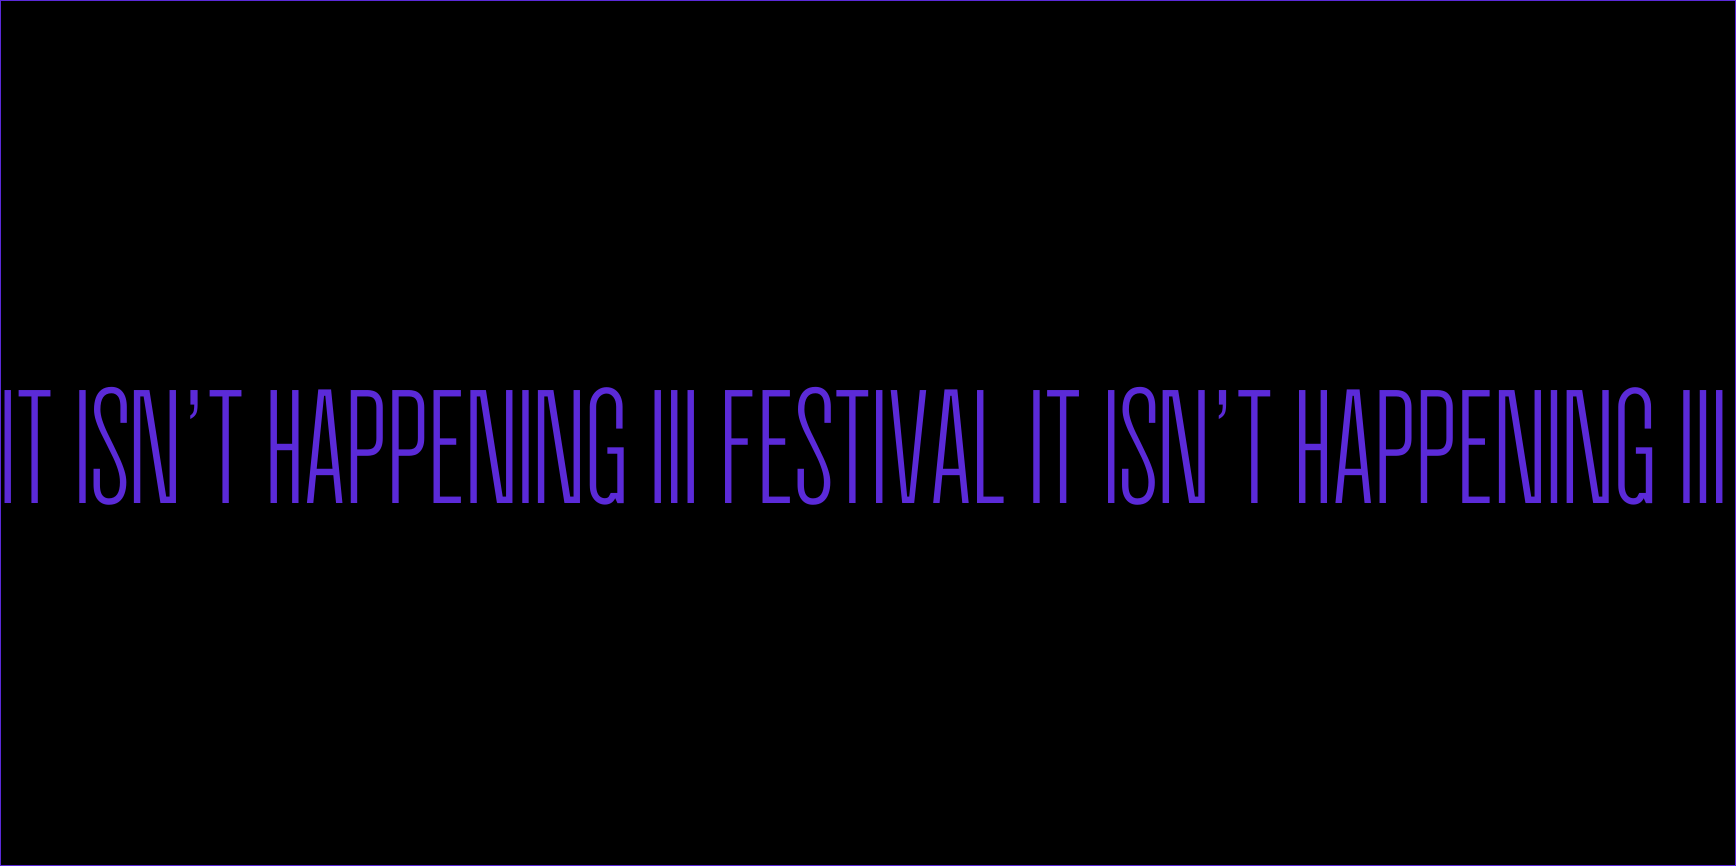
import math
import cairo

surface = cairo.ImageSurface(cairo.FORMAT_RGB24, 1736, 866)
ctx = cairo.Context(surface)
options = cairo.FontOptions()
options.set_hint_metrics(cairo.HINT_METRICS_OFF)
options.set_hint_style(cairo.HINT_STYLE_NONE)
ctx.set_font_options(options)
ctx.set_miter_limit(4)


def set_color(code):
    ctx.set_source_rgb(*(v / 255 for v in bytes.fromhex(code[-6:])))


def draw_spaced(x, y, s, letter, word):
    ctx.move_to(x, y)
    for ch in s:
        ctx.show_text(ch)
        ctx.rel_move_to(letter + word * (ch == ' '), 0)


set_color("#000000")
ctx.paint()
ctx.rectangle(0.5, 0.5, 1735, 865)
set_color("#5b2ad8")
ctx.set_line_width(1)
ctx.stroke()
ctx.select_font_face("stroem")
ctx.set_font_size(160)
draw_spaced(1, 503, "IT ISN’T HAPPENING III FESTIVAL IT ISN’T HAPPENING III", 3, 0)
surface.write_to_png("output.png")
